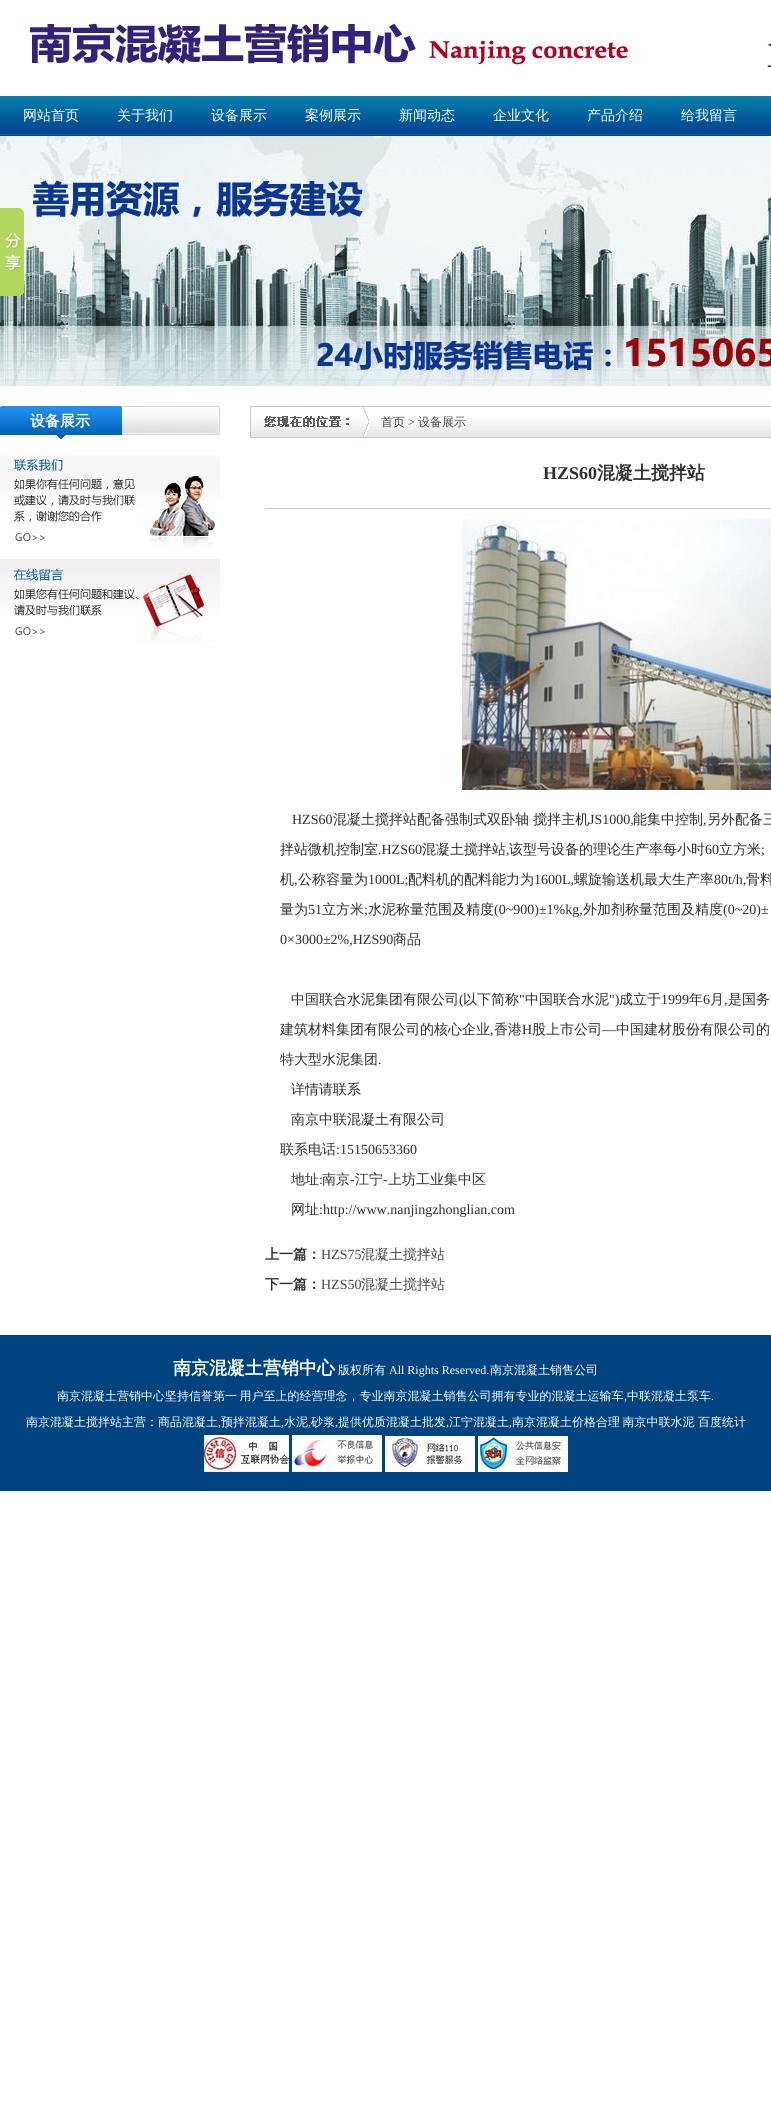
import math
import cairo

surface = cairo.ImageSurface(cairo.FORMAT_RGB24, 771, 2114)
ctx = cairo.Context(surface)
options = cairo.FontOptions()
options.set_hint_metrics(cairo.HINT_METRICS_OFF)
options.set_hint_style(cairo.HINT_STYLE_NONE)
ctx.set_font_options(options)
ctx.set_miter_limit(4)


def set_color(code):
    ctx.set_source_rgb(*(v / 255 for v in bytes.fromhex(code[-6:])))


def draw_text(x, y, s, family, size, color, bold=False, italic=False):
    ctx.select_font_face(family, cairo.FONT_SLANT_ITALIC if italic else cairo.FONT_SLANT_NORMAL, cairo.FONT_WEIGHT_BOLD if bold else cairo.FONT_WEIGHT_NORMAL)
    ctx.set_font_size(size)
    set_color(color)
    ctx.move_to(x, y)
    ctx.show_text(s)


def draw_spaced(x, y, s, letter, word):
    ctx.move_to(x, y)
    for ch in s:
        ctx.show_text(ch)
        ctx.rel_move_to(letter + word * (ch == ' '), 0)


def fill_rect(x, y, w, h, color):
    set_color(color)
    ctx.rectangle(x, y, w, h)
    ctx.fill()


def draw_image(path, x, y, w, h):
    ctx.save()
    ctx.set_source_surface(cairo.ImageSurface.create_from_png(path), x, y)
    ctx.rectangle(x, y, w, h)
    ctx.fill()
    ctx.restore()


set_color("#ffffff")
ctx.paint()
draw_image("assets/img1.png", 30, 23, 741, 46)
draw_image("assets/img2.png", 0, 96, 771, 40)
draw_text(23, 120, "网站首页", "WenQuanYi Zen Hei Medium", 14, "#ffffff")
draw_text(117, 120, "关于我们", "WenQuanYi Zen Hei Medium", 14, "#ffffff")
draw_text(211, 120, "设备展示", "WenQuanYi Zen Hei Medium", 14, "#ffffff")
draw_text(305, 120, "案例展示", "WenQuanYi Zen Hei Medium", 14, "#ffffff")
draw_text(399, 120, "新闻动态", "WenQuanYi Zen Hei Medium", 14, "#ffffff")
draw_text(493, 120, "企业文化", "WenQuanYi Zen Hei Medium", 14, "#ffffff")
draw_text(587, 120, "产品介绍", "WenQuanYi Zen Hei Medium", 14, "#ffffff")
draw_text(681, 120, "给我留言", "WenQuanYi Zen Hei Medium", 14, "#ffffff")
draw_image("assets/img3.png", 0, 136, 771, 250)
draw_image("assets/img4.png", 0, 208, 24, 88)
draw_image("assets/img5.png", 0, 406, 220, 33)
draw_text(30, 426, "设备展示", "WenQuanYi Zen Hei", 15, "#ffffff", bold=True)
draw_image("assets/img6.png", 0, 455, 220, 92)
draw_image("assets/img7.png", 0, 559, 220, 83)
draw_image("assets/img8.png", 251, 407, 520, 30)
ctx.rectangle(250.5, 406.5, 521, 31)
set_color("#cacaca")
ctx.set_line_width(1)
ctx.stroke()
draw_text(381, 426, "首页", "WenQuanYi Zen Hei Medium", 12, "#464646")
draw_text(408, 426, ">", "Liberation Serif", 12, "#2e2e2e")
draw_text(418, 426, "设备展示", "WenQuanYi Zen Hei Medium", 12, "#464646")
fill_rect(265, 508, 506, 1, "#cccccc")
draw_text(543, 479, "HZS60", "Liberation Serif", 18, "#2e2e2e", bold=True)
draw_text(597, 479, "混凝土搅拌站", "WenQuanYi Zen Hei", 18, "#2e2e2e", bold=True)
draw_image("assets/img9.png", 462, 519, 309, 271)
draw_text(292, 824, "HZS60", "Liberation Serif", 14, "#2e2e2e")
draw_text(333, 824, "混凝土搅拌站配备强制式双卧轴 搅拌主机", "WenQuanYi Zen Hei Medium", 14, "#2e2e2e")
draw_text(589, 824, "JS1000,", "Liberation Serif", 14, "#2e2e2e")
draw_text(633, 824, "能集中控制", "WenQuanYi Zen Hei Medium", 14, "#2e2e2e")
draw_text(703, 824, ",", "Liberation Serif", 14, "#2e2e2e")
draw_text(707, 824, "另外配备三", "WenQuanYi Zen Hei Medium", 14, "#2e2e2e")
draw_text(280, 854, "拌站微机控制室", "WenQuanYi Zen Hei Medium", 14, "#2e2e2e")
draw_text(378, 854, ".HZS60", "Liberation Serif", 14, "#2e2e2e")
draw_text(422, 854, "混凝土搅拌站", "WenQuanYi Zen Hei Medium", 14, "#2e2e2e")
draw_text(506, 854, ",", "Liberation Serif", 14, "#2e2e2e")
draw_text(509, 854, "该型号设备的理论生产率每小时", "WenQuanYi Zen Hei Medium", 14, "#2e2e2e")
draw_text(705, 854, "60", "Liberation Serif", 14, "#2e2e2e")
draw_text(719, 854, "立方米", "WenQuanYi Zen Hei Medium", 14, "#2e2e2e")
draw_text(761, 854, ";", "Liberation Serif", 14, "#2e2e2e")
draw_text(280, 884, "机", "WenQuanYi Zen Hei Medium", 14, "#2e2e2e")
draw_text(294, 884, ",", "Liberation Serif", 14, "#2e2e2e")
draw_text(298, 884, "公称容量为", "WenQuanYi Zen Hei Medium", 14, "#2e2e2e")
draw_text(368, 884, "1000L;", "Liberation Serif", 14, "#2e2e2e")
draw_text(408, 884, "配料机的配料能力为", "WenQuanYi Zen Hei Medium", 14, "#2e2e2e")
draw_text(534, 884, "1600L,", "Liberation Serif", 14, "#2e2e2e")
draw_text(574, 884, "螺旋输送机最大生产率", "WenQuanYi Zen Hei Medium", 14, "#2e2e2e")
draw_text(714, 884, "80t/h,", "Liberation Serif", 14, "#2e2e2e")
draw_text(746, 884, "骨料", "WenQuanYi Zen Hei Medium", 14, "#2e2e2e")
draw_text(280, 914, "量为", "WenQuanYi Zen Hei Medium", 14, "#2e2e2e")
draw_text(308, 914, "51", "Liberation Serif", 14, "#2e2e2e")
draw_text(322, 914, "立方米", "WenQuanYi Zen Hei Medium", 14, "#2e2e2e")
draw_text(364, 914, ";", "Liberation Serif", 14, "#2e2e2e")
draw_text(368, 914, "水泥称量范围及精度", "WenQuanYi Zen Hei Medium", 14, "#2e2e2e")
draw_text(494, 914, "(0~900)±1%kg,", "Liberation Serif", 14, "#2e2e2e")
draw_text(583, 914, "外加剂称量范围及精度", "WenQuanYi Zen Hei Medium", 14, "#2e2e2e")
draw_text(723, 914, "(0~20)±", "Liberation Serif", 14, "#2e2e2e")
draw_text(280, 944, "0×3000±2%,HZS90", "Liberation Serif", 14, "#2e2e2e")
draw_text(393, 944, "商品", "WenQuanYi Zen Hei Medium", 14, "#2e2e2e")
draw_text(291, 1004, "中国联合水泥集团有限公司", "WenQuanYi Zen Hei Medium", 14, "#2e2e2e")
draw_text(459, 1004, "(", "Liberation Serif", 14, "#2e2e2e")
draw_text(463, 1004, "以下简称", "WenQuanYi Zen Hei Medium", 14, "#2e2e2e")
draw_text(519, 1004, "\"", "Liberation Serif", 14, "#2e2e2e")
draw_text(525, 1004, "中国联合水泥", "WenQuanYi Zen Hei Medium", 14, "#2e2e2e")
draw_text(609, 1004, "\")", "Liberation Serif", 14, "#2e2e2e")
draw_text(619, 1004, "成立于", "WenQuanYi Zen Hei Medium", 14, "#2e2e2e")
draw_text(661, 1004, "1999", "Liberation Serif", 14, "#2e2e2e")
draw_text(689, 1004, "年", "WenQuanYi Zen Hei Medium", 14, "#2e2e2e")
draw_text(703, 1004, "6", "Liberation Serif", 14, "#2e2e2e")
draw_text(710, 1004, "月", "WenQuanYi Zen Hei Medium", 14, "#2e2e2e")
draw_text(724, 1004, ",", "Liberation Serif", 14, "#2e2e2e")
draw_text(728, 1004, "是国务", "WenQuanYi Zen Hei Medium", 14, "#2e2e2e")
draw_text(280, 1034, "建筑材料集团有限公司的核心企业", "WenQuanYi Zen Hei Medium", 14, "#2e2e2e")
draw_text(494, 1034, "香港", "WenQuanYi Zen Hei Medium", 14, "#2e2e2e")
draw_text(522, 1034, "H", "Liberation Serif", 14, "#2e2e2e")
draw_text(532, 1034, "股上市公司", "WenQuanYi Zen Hei Medium", 14, "#2e2e2e")
draw_text(602, 1034, "—", "Liberation Serif", 14, "#2e2e2e")
draw_text(616, 1034, "中国建材股份有限公司的", "WenQuanYi Zen Hei Medium", 14, "#2e2e2e")
draw_text(490, 1034, ",", "Liberation Serif", 14, "#2e2e2e")
draw_text(280, 1064, "特大型水泥集团", "WenQuanYi Zen Hei Medium", 14, "#2e2e2e")
draw_text(378, 1064, ".", "Liberation Serif", 14, "#2e2e2e")
draw_text(291, 1094, "详情请联系", "WenQuanYi Zen Hei Medium", 14, "#2e2e2e")
draw_text(291, 1124, "南京中联混凝土有限公司", "WenQuanYi Zen Hei Medium", 14, "#2e2e2e")
draw_text(280, 1154, "联系电话", "WenQuanYi Zen Hei Medium", 14, "#2e2e2e")
draw_text(336, 1154, ":15150653360", "Liberation Serif", 14, "#2e2e2e")
draw_text(291, 1184, "地址", "WenQuanYi Zen Hei Medium", 14, "#2e2e2e")
draw_text(319, 1184, ":", "Liberation Serif", 14, "#2e2e2e")
draw_text(322, 1184, "南京", "WenQuanYi Zen Hei Medium", 14, "#2e2e2e")
draw_text(350, 1184, "-", "Liberation Serif", 14, "#2e2e2e")
draw_text(355, 1184, "江宁", "WenQuanYi Zen Hei Medium", 14, "#2e2e2e")
draw_text(383, 1184, "-", "Liberation Serif", 14, "#2e2e2e")
draw_text(388, 1184, "上坊工业集中区", "WenQuanYi Zen Hei Medium", 14, "#2e2e2e")
draw_text(291, 1214, "网址", "WenQuanYi Zen Hei Medium", 14, "#2e2e2e")
draw_text(319, 1214, ":http://www.nanjingzhonglian.com", "Liberation Serif", 14, "#2e2e2e")
draw_text(265, 1259, "上一篇：", "WenQuanYi Zen Hei", 14, "#2e2e2e", bold=True)
draw_text(321, 1259, "HZS75", "Liberation Serif", 14, "#464646")
draw_text(361, 1259, "混凝土搅拌站", "WenQuanYi Zen Hei Medium", 14, "#464646")
draw_text(265, 1289, "下一篇：", "WenQuanYi Zen Hei", 14, "#2e2e2e", bold=True)
draw_text(321, 1289, "HZS50", "Liberation Serif", 14, "#464646")
draw_text(361, 1289, "混凝土搅拌站", "WenQuanYi Zen Hei Medium", 14, "#464646")
fill_rect(0, 1335, 771, 156, "#004381")
draw_text(173, 1374, "南京混凝土营销中心", "WenQuanYi Zen Hei", 18, "#ffffff", bold=True)
draw_text(338, 1374, "版权所有", "WenQuanYi Zen Hei Medium", 12, "#ffffff")
draw_text(389, 1374, "All Rights Reserved.", "Liberation Serif", 12, "#ffffff")
draw_text(490, 1374, "南京混凝土销售公司", "WenQuanYi Zen Hei Medium", 12, "#ffffff")
draw_spaced(57, 1400, "南京混凝土营销中心坚持信誉第一 用户至上的经营理念，专业南京混凝土销售公司拥有专业的混凝土运输车", 0, -1)
draw_text(624, 1400, ",", "Liberation Serif", 12, "#ffffff")
draw_text(627, 1400, "中联混凝土泵车", "WenQuanYi Zen Hei Medium", 12, "#ffffff")
draw_text(711, 1400, ".", "Liberation Serif", 12, "#ffffff")
draw_text(26, 1426, "南京混凝土搅拌站主营：商品混凝土", "WenQuanYi Zen Hei Medium", 12, "#ffffff")
draw_text(218, 1426, ",", "Liberation Serif", 12, "#ffffff")
draw_text(221, 1426, "预拌混凝土", "WenQuanYi Zen Hei Medium", 12, "#ffffff")
draw_text(281, 1426, ",", "Liberation Serif", 12, "#ffffff")
draw_text(284, 1426, "水泥", "WenQuanYi Zen Hei Medium", 12, "#ffffff")
draw_text(308, 1426, ",", "Liberation Serif", 12, "#ffffff")
draw_text(311, 1426, "砂浆", "WenQuanYi Zen Hei Medium", 12, "#ffffff")
draw_text(335, 1426, ",", "Liberation Serif", 12, "#ffffff")
draw_text(338, 1426, "提供优质混凝土批发", "WenQuanYi Zen Hei Medium", 12, "#ffffff")
draw_text(446, 1426, ",", "Liberation Serif", 12, "#ffffff")
draw_text(449, 1426, "江宁混凝土", "WenQuanYi Zen Hei Medium", 12, "#ffffff")
draw_text(509, 1426, ",", "Liberation Serif", 12, "#ffffff")
ctx.select_font_face("WenQuanYi Zen Hei Medium")
draw_spaced(512, 1426, "南京混凝土价格合理 南京中联水泥", 0, -1)
draw_text(698, 1426, "百度统计", "WenQuanYi Zen Hei Medium", 12, "#ffffff")
draw_image("assets/img10.png", 204, 1435, 85, 37)
draw_image("assets/img11.png", 292, 1435, 90, 37)
draw_image("assets/img12.png", 385, 1436, 90, 36)
draw_image("assets/img13.png", 478, 1436, 90, 36)
surface.write_to_png("output.png")
